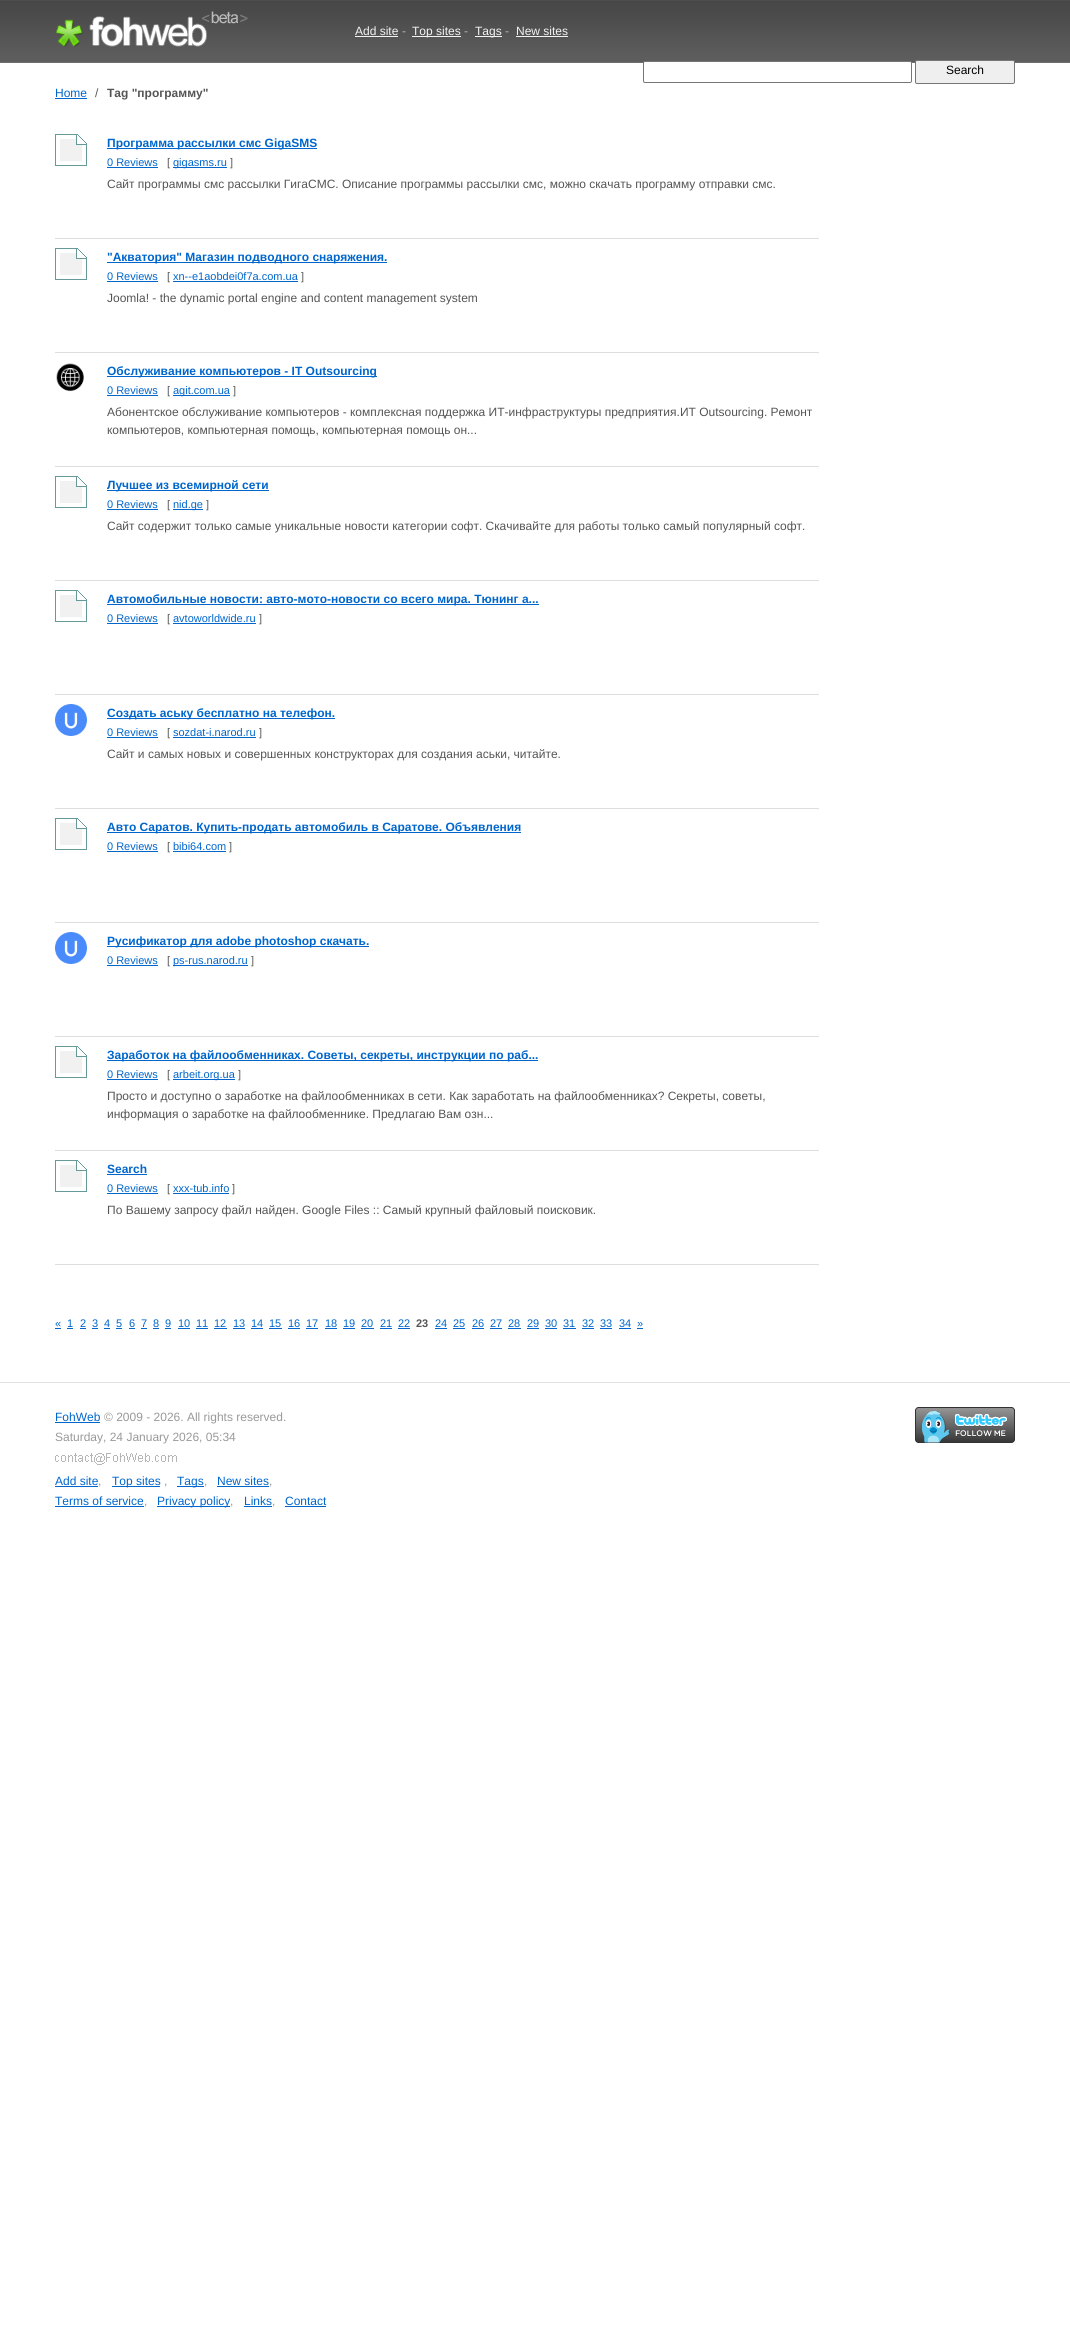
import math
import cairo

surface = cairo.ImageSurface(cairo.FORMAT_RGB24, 1070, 2347)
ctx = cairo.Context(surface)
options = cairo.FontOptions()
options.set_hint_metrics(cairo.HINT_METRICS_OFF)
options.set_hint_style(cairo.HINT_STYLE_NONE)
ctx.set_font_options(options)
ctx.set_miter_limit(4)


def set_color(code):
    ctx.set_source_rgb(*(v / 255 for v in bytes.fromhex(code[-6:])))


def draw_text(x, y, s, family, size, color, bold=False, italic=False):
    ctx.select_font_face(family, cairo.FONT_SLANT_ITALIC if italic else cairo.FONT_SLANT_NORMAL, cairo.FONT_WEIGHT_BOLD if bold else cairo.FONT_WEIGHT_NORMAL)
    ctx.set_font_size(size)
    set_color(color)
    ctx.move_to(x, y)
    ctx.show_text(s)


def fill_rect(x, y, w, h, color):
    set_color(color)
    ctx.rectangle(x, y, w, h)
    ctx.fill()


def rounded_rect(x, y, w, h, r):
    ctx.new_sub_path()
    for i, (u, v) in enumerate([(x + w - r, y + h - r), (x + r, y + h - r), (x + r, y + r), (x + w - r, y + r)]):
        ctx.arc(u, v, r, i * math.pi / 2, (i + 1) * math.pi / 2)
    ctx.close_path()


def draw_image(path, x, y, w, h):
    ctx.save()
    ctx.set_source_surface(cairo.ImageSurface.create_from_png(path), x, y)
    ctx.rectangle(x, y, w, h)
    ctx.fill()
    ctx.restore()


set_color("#ffffff")
ctx.paint()
draw_image("assets/img1.png", 0, 0, 1070, 63)
draw_image("assets/img2.png", 55, 11, 193, 36)
draw_text(355, 35, "Add site", "Liberation Sans", 12, "#f3f3f3")
fill_rect(355, 36, 43, 1, "#f3f3f3")
draw_text(402, 35, "-", "Liberation Sans", 12, "#b6b6b6")
fill_rect(412, 36, 49, 1, "#f3f3f3")
draw_text(412, 35, "Top sites", "Liberation Sans", 12, "#f3f3f3")
draw_text(464, 35, "-", "Liberation Sans", 12, "#b6b6b6")
fill_rect(475, 36, 27, 1, "#f3f3f3")
draw_text(475, 35, "Tags", "Liberation Sans", 12, "#f3f3f3")
draw_text(505, 35, "-", "Liberation Sans", 12, "#b6b6b6")
draw_text(516, 35, "New sites", "Liberation Sans", 12, "#f3f3f3")
fill_rect(516, 36, 52, 1, "#f3f3f3")
set_color("#ffffff")
rounded_rect(643.5, 61.5, 268, 21, 1.5)
ctx.fill_preserve()
set_color("#767676")
ctx.set_line_width(1)
ctx.stroke()
set_color("#efefef")
rounded_rect(915.5, 60.5, 99, 23, 1.5)
ctx.fill_preserve()
set_color("#767676")
ctx.stroke()
draw_text(946, 74, "Search", "Liberation Sans", 12, "#000000")
draw_text(55, 97, "Home", "Liberation Sans", 12, "#0066cc")
fill_rect(55, 98, 32, 1, "#0066cc")
draw_text(95, 97, "/", "Liberation Sans", 12, "#555555")
draw_text(107, 97, "Tag \"программу\"", "Liberation Sans", 12, "#555555", bold=True)
fill_rect(55, 238, 764, 1, "#dedede")
draw_image("assets/img3.png", 55, 134, 32, 32)
fill_rect(107, 148, 210, 1, "#0066cc")
draw_text(107, 147, "Программа рассылки смс GigaSMS", "Liberation Sans", 12, "#0066cc", bold=True)
draw_text(107, 166, "0 Reviews", "Liberation Sans", 11, "#0066cc")
fill_rect(107, 167, 51, 1, "#0066cc")
draw_text(167, 166, "[", "Liberation Sans", 11, "#555555")
fill_rect(173, 167, 54, 1, "#0066cc")
draw_text(173, 166, "gigasms.ru", "Liberation Sans", 11, "#0066cc")
draw_text(230, 166, "]", "Liberation Sans", 11, "#555555")
draw_text(107, 188, "Сайт программы смс рассылки ГигаСМС. Описание программы рассылки смс, можно скачать программу отправки смс.", "Liberation Sans", 12, "#555555")
fill_rect(55, 352, 764, 1, "#dedede")
draw_image("assets/img3.png", 55, 248, 32, 32)
fill_rect(107, 262, 280, 1, "#0066cc")
draw_text(107, 261, "\"Акватория\" Магазин подводного снаряжения.", "Liberation Sans", 12, "#0066cc", bold=True)
draw_text(107, 280, "0 Reviews", "Liberation Sans", 11, "#0066cc")
fill_rect(107, 281, 51, 1, "#0066cc")
draw_text(167, 280, "[", "Liberation Sans", 11, "#555555")
draw_text(173, 280, "xn--e1aobdei0f7a.com.ua", "Liberation Sans", 11, "#0066cc")
fill_rect(173, 281, 125, 1, "#0066cc")
draw_text(301, 280, "]", "Liberation Sans", 11, "#555555")
draw_text(107, 302, "Joomla! - the dynamic portal engine and content management system", "Liberation Sans", 12, "#555555")
fill_rect(55, 466, 764, 1, "#dedede")
draw_image("assets/img4.png", 56, 363, 28, 29)
fill_rect(107, 376, 270, 1, "#0066cc")
draw_text(107, 375, "Обслуживание компьютеров - IT Outsourcing", "Liberation Sans", 12, "#0066cc", bold=True)
draw_text(107, 394, "0 Reviews", "Liberation Sans", 11, "#0066cc")
fill_rect(107, 395, 51, 1, "#0066cc")
draw_text(167, 394, "[", "Liberation Sans", 11, "#555555")
fill_rect(173, 395, 57, 1, "#0066cc")
draw_text(173, 394, "agit.com.ua", "Liberation Sans", 11, "#0066cc")
draw_text(233, 394, "]", "Liberation Sans", 11, "#555555")
draw_text(107, 416, "Абонентское обслуживание компьютеров - комплексная поддержка ИT-инфраструктуры предприятия.ИТ Outsourcing. Ремонт", "Liberation Sans", 12, "#555555")
draw_text(107, 434, "компьютеров, компьютерная помощь, компьютерная помощь он...", "Liberation Sans", 12, "#555555")
fill_rect(55, 580, 764, 1, "#dedede")
draw_image("assets/img3.png", 55, 476, 32, 32)
fill_rect(107, 490, 162, 1, "#0066cc")
draw_text(107, 489, "Лучшее из всемирной сети", "Liberation Sans", 12, "#0066cc", bold=True)
draw_text(107, 508, "0 Reviews", "Liberation Sans", 11, "#0066cc")
fill_rect(107, 509, 51, 1, "#0066cc")
draw_text(167, 508, "[", "Liberation Sans", 11, "#555555")
fill_rect(173, 509, 30, 1, "#0066cc")
draw_text(173, 508, "nid.ge", "Liberation Sans", 11, "#0066cc")
draw_text(206, 508, "]", "Liberation Sans", 11, "#555555")
draw_text(107, 530, "Сайт содержит только самые уникальные новости категории софт. Скачивайте для работы только самый популярный софт.", "Liberation Sans", 12, "#555555")
fill_rect(55, 694, 764, 1, "#dedede")
draw_image("assets/img3.png", 55, 590, 32, 32)
fill_rect(107, 604, 432, 1, "#0066cc")
draw_text(107, 603, "Автомобильные новости: авто-мото-новости со всего мира. Тюнинг а...", "Liberation Sans", 12, "#0066cc", bold=True)
draw_text(107, 622, "0 Reviews", "Liberation Sans", 11, "#0066cc")
fill_rect(107, 623, 51, 1, "#0066cc")
draw_text(167, 622, "[", "Liberation Sans", 11, "#555555")
draw_text(173, 622, "avtoworldwide.ru", "Liberation Sans", 11, "#0066cc")
fill_rect(173, 623, 83, 1, "#0066cc")
draw_text(259, 622, "]", "Liberation Sans", 11, "#555555")
fill_rect(55, 808, 764, 1, "#dedede")
draw_image("assets/img5.png", 55, 704, 32, 32)
fill_rect(107, 718, 228, 1, "#0066cc")
draw_text(107, 717, "Создать аську бесплатно на телефон.", "Liberation Sans", 12, "#0066cc", bold=True)
draw_text(107, 736, "0 Reviews", "Liberation Sans", 11, "#0066cc")
fill_rect(107, 737, 51, 1, "#0066cc")
draw_text(167, 736, "[", "Liberation Sans", 11, "#555555")
draw_text(173, 736, "sozdat-i.narod.ru", "Liberation Sans", 11, "#0066cc")
fill_rect(173, 737, 83, 1, "#0066cc")
draw_text(259, 736, "]", "Liberation Sans", 11, "#555555")
draw_text(107, 758, "Сайт и самых новых и совершенных конструкторах для создания аськи, читайте.", "Liberation Sans", 12, "#555555")
fill_rect(55, 922, 764, 1, "#dedede")
draw_image("assets/img3.png", 55, 818, 32, 32)
fill_rect(107, 832, 414, 1, "#0066cc")
draw_text(107, 831, "Авто Саратов. Купить-продать автомобиль в Саратове. Объявления", "Liberation Sans", 12, "#0066cc", bold=True)
draw_text(107, 850, "0 Reviews", "Liberation Sans", 11, "#0066cc")
fill_rect(107, 851, 51, 1, "#0066cc")
draw_text(167, 850, "[", "Liberation Sans", 11, "#555555")
draw_text(173, 850, "bibi64.com", "Liberation Sans", 11, "#0066cc")
fill_rect(173, 851, 53, 1, "#0066cc")
draw_text(229, 850, "]", "Liberation Sans", 11, "#555555")
fill_rect(55, 1036, 764, 1, "#dedede")
draw_image("assets/img5.png", 55, 932, 32, 32)
fill_rect(107, 946, 262, 1, "#0066cc")
draw_text(107, 945, "Русификатор для adobe photoshop скачать.", "Liberation Sans", 12, "#0066cc", bold=True)
draw_text(107, 964, "0 Reviews", "Liberation Sans", 11, "#0066cc")
fill_rect(107, 965, 51, 1, "#0066cc")
draw_text(167, 964, "[", "Liberation Sans", 11, "#555555")
fill_rect(173, 965, 75, 1, "#0066cc")
draw_text(173, 964, "ps-rus.narod.ru", "Liberation Sans", 11, "#0066cc")
draw_text(251, 964, "]", "Liberation Sans", 11, "#555555")
fill_rect(55, 1150, 764, 1, "#dedede")
draw_image("assets/img3.png", 55, 1046, 32, 32)
fill_rect(107, 1060, 431, 1, "#0066cc")
draw_text(107, 1059, "Заработок на файлообменниках. Советы, секреты, инструкции по раб...", "Liberation Sans", 12, "#0066cc", bold=True)
draw_text(107, 1078, "0 Reviews", "Liberation Sans", 11, "#0066cc")
fill_rect(107, 1079, 51, 1, "#0066cc")
draw_text(167, 1078, "[", "Liberation Sans", 11, "#555555")
fill_rect(173, 1079, 62, 1, "#0066cc")
draw_text(173, 1078, "arbeit.org.ua", "Liberation Sans", 11, "#0066cc")
draw_text(238, 1078, "]", "Liberation Sans", 11, "#555555")
draw_text(107, 1100, "Просто и доступно о заработке на файлообменниках в сети. Как заработать на файлообменниках? Секреты, советы,", "Liberation Sans", 12, "#555555")
draw_text(107, 1118, "информация о заработке на файлообменнике. Предлагаю Вам озн...", "Liberation Sans", 12, "#555555")
fill_rect(55, 1264, 764, 1, "#dedede")
draw_image("assets/img3.png", 55, 1160, 32, 32)
draw_text(107, 1173, "Search", "Liberation Sans", 12, "#0066cc", bold=True)
fill_rect(107, 1174, 40, 1, "#0066cc")
draw_text(107, 1192, "0 Reviews", "Liberation Sans", 11, "#0066cc")
fill_rect(107, 1193, 51, 1, "#0066cc")
draw_text(167, 1192, "[", "Liberation Sans", 11, "#555555")
draw_text(173, 1192, "xxx-tub.info", "Liberation Sans", 11, "#0066cc")
fill_rect(173, 1193, 56, 1, "#0066cc")
draw_text(232, 1192, "]", "Liberation Sans", 11, "#555555")
draw_text(107, 1214, "По Вашему запросу файл найден. Google Files :: Самый крупный файловый поисковик.", "Liberation Sans", 12, "#555555")
draw_text(55, 1327, "«", "Liberation Sans", 11, "#0066cc")
fill_rect(55, 1328, 6, 1, "#0066cc")
draw_text(67, 1327, "1", "Liberation Sans", 11, "#0066cc")
fill_rect(67, 1328, 6, 1, "#0066cc")
draw_text(80, 1327, "2", "Liberation Sans", 11, "#0066cc")
fill_rect(80, 1328, 6, 1, "#0066cc")
draw_text(92, 1327, "3", "Liberation Sans", 11, "#0066cc")
fill_rect(92, 1328, 6, 1, "#0066cc")
draw_text(104, 1327, "4", "Liberation Sans", 11, "#0066cc")
fill_rect(104, 1328, 6, 1, "#0066cc")
draw_text(116, 1327, "5", "Liberation Sans", 11, "#0066cc")
fill_rect(116, 1328, 6, 1, "#0066cc")
draw_text(129, 1327, "6", "Liberation Sans", 11, "#0066cc")
fill_rect(129, 1328, 6, 1, "#0066cc")
draw_text(141, 1327, "7", "Liberation Sans", 11, "#0066cc")
fill_rect(141, 1328, 6, 1, "#0066cc")
draw_text(153, 1327, "8", "Liberation Sans", 11, "#0066cc")
fill_rect(153, 1328, 6, 1, "#0066cc")
draw_text(165, 1327, "9", "Liberation Sans", 11, "#0066cc")
fill_rect(165, 1328, 6, 1, "#0066cc")
draw_text(178, 1327, "10", "Liberation Sans", 11, "#0066cc")
fill_rect(178, 1328, 12, 1, "#0066cc")
draw_text(196, 1327, "11", "Liberation Sans", 11, "#0066cc")
fill_rect(196, 1328, 12, 1, "#0066cc")
draw_text(214, 1327, "12", "Liberation Sans", 11, "#0066cc")
fill_rect(214, 1328, 13, 1, "#0066cc")
draw_text(233, 1327, "13", "Liberation Sans", 11, "#0066cc")
fill_rect(233, 1328, 12, 1, "#0066cc")
draw_text(251, 1327, "14", "Liberation Sans", 11, "#0066cc")
fill_rect(251, 1328, 12, 1, "#0066cc")
draw_text(269, 1327, "15", "Liberation Sans", 11, "#0066cc")
fill_rect(269, 1328, 13, 1, "#0066cc")
draw_text(288, 1327, "16", "Liberation Sans", 11, "#0066cc")
fill_rect(288, 1328, 12, 1, "#0066cc")
draw_text(306, 1327, "17", "Liberation Sans", 11, "#0066cc")
fill_rect(306, 1328, 12, 1, "#0066cc")
draw_text(325, 1327, "18", "Liberation Sans", 11, "#0066cc")
fill_rect(325, 1328, 12, 1, "#0066cc")
draw_text(343, 1327, "19", "Liberation Sans", 11, "#0066cc")
fill_rect(343, 1328, 12, 1, "#0066cc")
draw_text(361, 1327, "20", "Liberation Sans", 11, "#0066cc")
fill_rect(361, 1328, 13, 1, "#0066cc")
draw_text(380, 1327, "21", "Liberation Sans", 11, "#0066cc")
fill_rect(380, 1328, 12, 1, "#0066cc")
draw_text(398, 1327, "22", "Liberation Sans", 11, "#0066cc")
fill_rect(398, 1328, 12, 1, "#0066cc")
draw_text(416, 1327, "23", "Liberation Sans", 11, "#555555", bold=True)
draw_text(435, 1327, "24", "Liberation Sans", 11, "#0066cc")
fill_rect(435, 1328, 12, 1, "#0066cc")
draw_text(453, 1327, "25", "Liberation Sans", 11, "#0066cc")
fill_rect(453, 1328, 12, 1, "#0066cc")
draw_text(472, 1327, "26", "Liberation Sans", 11, "#0066cc")
fill_rect(472, 1328, 12, 1, "#0066cc")
draw_text(490, 1327, "27", "Liberation Sans", 11, "#0066cc")
fill_rect(490, 1328, 12, 1, "#0066cc")
draw_text(508, 1327, "28", "Liberation Sans", 11, "#0066cc")
fill_rect(508, 1328, 13, 1, "#0066cc")
draw_text(527, 1327, "29", "Liberation Sans", 11, "#0066cc")
fill_rect(527, 1328, 12, 1, "#0066cc")
draw_text(545, 1327, "30", "Liberation Sans", 11, "#0066cc")
fill_rect(545, 1328, 12, 1, "#0066cc")
draw_text(563, 1327, "31", "Liberation Sans", 11, "#0066cc")
fill_rect(563, 1328, 13, 1, "#0066cc")
draw_text(582, 1327, "32", "Liberation Sans", 11, "#0066cc")
fill_rect(582, 1328, 12, 1, "#0066cc")
draw_text(600, 1327, "33", "Liberation Sans", 11, "#0066cc")
fill_rect(600, 1328, 12, 1, "#0066cc")
draw_text(619, 1327, "34", "Liberation Sans", 11, "#0066cc")
fill_rect(619, 1328, 12, 1, "#0066cc")
draw_text(637, 1327, "»", "Liberation Sans", 11, "#0066cc")
fill_rect(637, 1328, 6, 1, "#0066cc")
fill_rect(0, 1382, 1070, 1, "#e2e2e2")
draw_text(55, 1421, "FohWeb", "Liberation Sans", 12, "#0066cc")
fill_rect(55, 1422, 45, 1, "#0066cc")
draw_text(104, 1421, "© 2009 - 2026. All rights reserved.", "Liberation Sans", 12, "#999999")
draw_text(55, 1441, "Saturday, 24 January 2026, 05:34", "Liberation Sans", 12, "#999999")
draw_image("assets/img6.png", 55, 1453, 122, 12)
draw_text(55, 1485, "Add site", "Liberation Sans", 12, "#0066cc")
fill_rect(55, 1486, 43, 1, "#0066cc")
draw_text(98, 1485, ",", "Liberation Sans", 12, "#999999")
fill_rect(112, 1486, 48, 1, "#0066cc")
draw_text(112, 1485, "Top sites", "Liberation Sans", 12, "#0066cc")
draw_text(164, 1485, ",", "Liberation Sans", 12, "#999999")
fill_rect(177, 1486, 27, 1, "#0066cc")
draw_text(177, 1485, "Tags", "Liberation Sans", 12, "#0066cc")
draw_text(204, 1485, ",", "Liberation Sans", 12, "#999999")
draw_text(217, 1485, "New sites", "Liberation Sans", 12, "#0066cc")
fill_rect(217, 1486, 52, 1, "#0066cc")
draw_text(269, 1485, ",", "Liberation Sans", 12, "#999999")
draw_text(55, 1505, "Terms of service", "Liberation Sans", 12, "#0066cc")
fill_rect(55, 1506, 89, 1, "#0066cc")
draw_text(144, 1505, ",", "Liberation Sans", 12, "#999999")
fill_rect(157, 1506, 73, 1, "#0066cc")
draw_text(157, 1505, "Privacy policy", "Liberation Sans", 12, "#0066cc")
draw_text(230, 1505, ",", "Liberation Sans", 12, "#999999")
draw_text(244, 1505, "Links", "Liberation Sans", 12, "#0066cc")
fill_rect(244, 1506, 28, 1, "#0066cc")
draw_text(272, 1505, ",", "Liberation Sans", 12, "#999999")
draw_text(285, 1505, "Contact", "Liberation Sans", 12, "#0066cc")
fill_rect(285, 1506, 41, 1, "#0066cc")
draw_image("assets/img7.png", 915, 1407, 100, 36)
surface.write_to_png("output.png")
